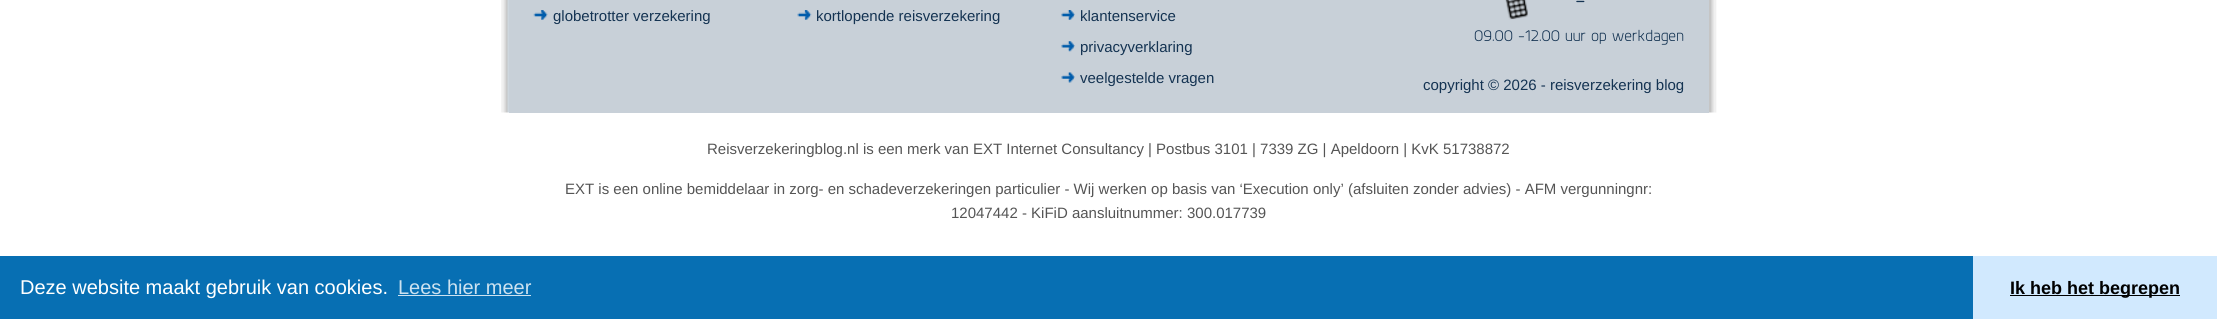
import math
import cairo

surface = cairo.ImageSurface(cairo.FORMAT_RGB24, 2217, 319)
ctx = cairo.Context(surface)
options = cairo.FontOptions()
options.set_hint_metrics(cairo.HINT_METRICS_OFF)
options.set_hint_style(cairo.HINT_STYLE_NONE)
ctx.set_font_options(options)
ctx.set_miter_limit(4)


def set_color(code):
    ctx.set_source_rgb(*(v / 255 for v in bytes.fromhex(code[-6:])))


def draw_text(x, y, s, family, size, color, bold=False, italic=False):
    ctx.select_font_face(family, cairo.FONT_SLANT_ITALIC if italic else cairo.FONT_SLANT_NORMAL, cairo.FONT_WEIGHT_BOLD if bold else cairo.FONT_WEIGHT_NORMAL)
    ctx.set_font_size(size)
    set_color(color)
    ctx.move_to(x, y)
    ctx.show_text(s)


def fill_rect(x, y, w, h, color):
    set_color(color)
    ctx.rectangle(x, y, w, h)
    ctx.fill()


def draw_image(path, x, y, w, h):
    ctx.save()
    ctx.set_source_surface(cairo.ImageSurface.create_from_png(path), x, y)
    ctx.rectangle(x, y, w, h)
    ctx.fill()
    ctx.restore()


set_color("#ffffff")
ctx.paint()
draw_image("assets/img1.png", 501, 0, 1216, 113)
fill_rect(509, 0, 1200, 113, "#c8d0d8")
draw_image("assets/img2.png", 533, 10, 15, 10)
draw_text(553, 21, "globetrotter verzekering", "Liberation Sans", 15, "#143352")
draw_image("assets/img3.png", 797, 10, 15, 10)
draw_text(816, 21, "kortlopende reisverzekering", "Liberation Sans", 15, "#143352")
draw_image("assets/img4.png", 1061, 10, 14, 10)
draw_text(1080, 21, "klantenservice", "Liberation Sans", 15, "#143352")
draw_image("assets/img5.png", 1061, 41, 14, 11)
draw_text(1080, 52, "privacyverklaring", "Liberation Sans", 15, "#143352")
draw_image("assets/img6.png", 1061, 72, 14, 11)
draw_text(1080, 83, "veelgestelde vragen", "Liberation Sans", 15, "#143352")
draw_image("assets/img7.png", 1505, 0, 23, 20)
draw_text(1575, 8, "-", "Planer", 25, "#143352")
draw_text(1474, 41, "09.00 -12.00 uur op werkdagen", "Planer", 16.25, "#143352")
draw_text(1423, 90, "copyright © 2026 - reisverzekering blog", "Liberation Sans", 15, "#143352")
draw_text(707, 154, "Reisverzekeringblog.nl is een merk van EXT Internet Consultancy | Postbus 3101 | 7339 ZG | Apeldoorn | KvK 51738872", "Liberation Sans", 15, "#555555")
draw_text(565, 194, "EXT is een online bemiddelaar in zorg- en schadeverzekeringen particulier - Wij werken op basis van ‘Execution only’ (afsluiten zonder advies) - AFM vergunningnr:", "Liberation Sans", 15, "#555555")
draw_text(951, 218, "12047442 - KiFiD aansluitnummer: 300.017739", "Liberation Sans", 15, "#555555")
fill_rect(0, 256, 1973, 63, "#076fb3")
draw_text(20, 294, "Deze website maakt gebruik van cookies.", "Liberation Sans", 20, "#ffffff")
draw_text(398, 294, "Lees hier meer", "Liberation Sans", 20, "#cde2f0")
fill_rect(398, 295, 133, 1, "#cde2f0")
fill_rect(1973, 256, 244, 63, "#d1e9fe")
fill_rect(2010, 295, 170, 1, "#000000")
draw_text(2010, 294, "Ik heb het begrepen", "Liberation Sans", 18, "#000000", bold=True)
surface.write_to_png("output.png")
